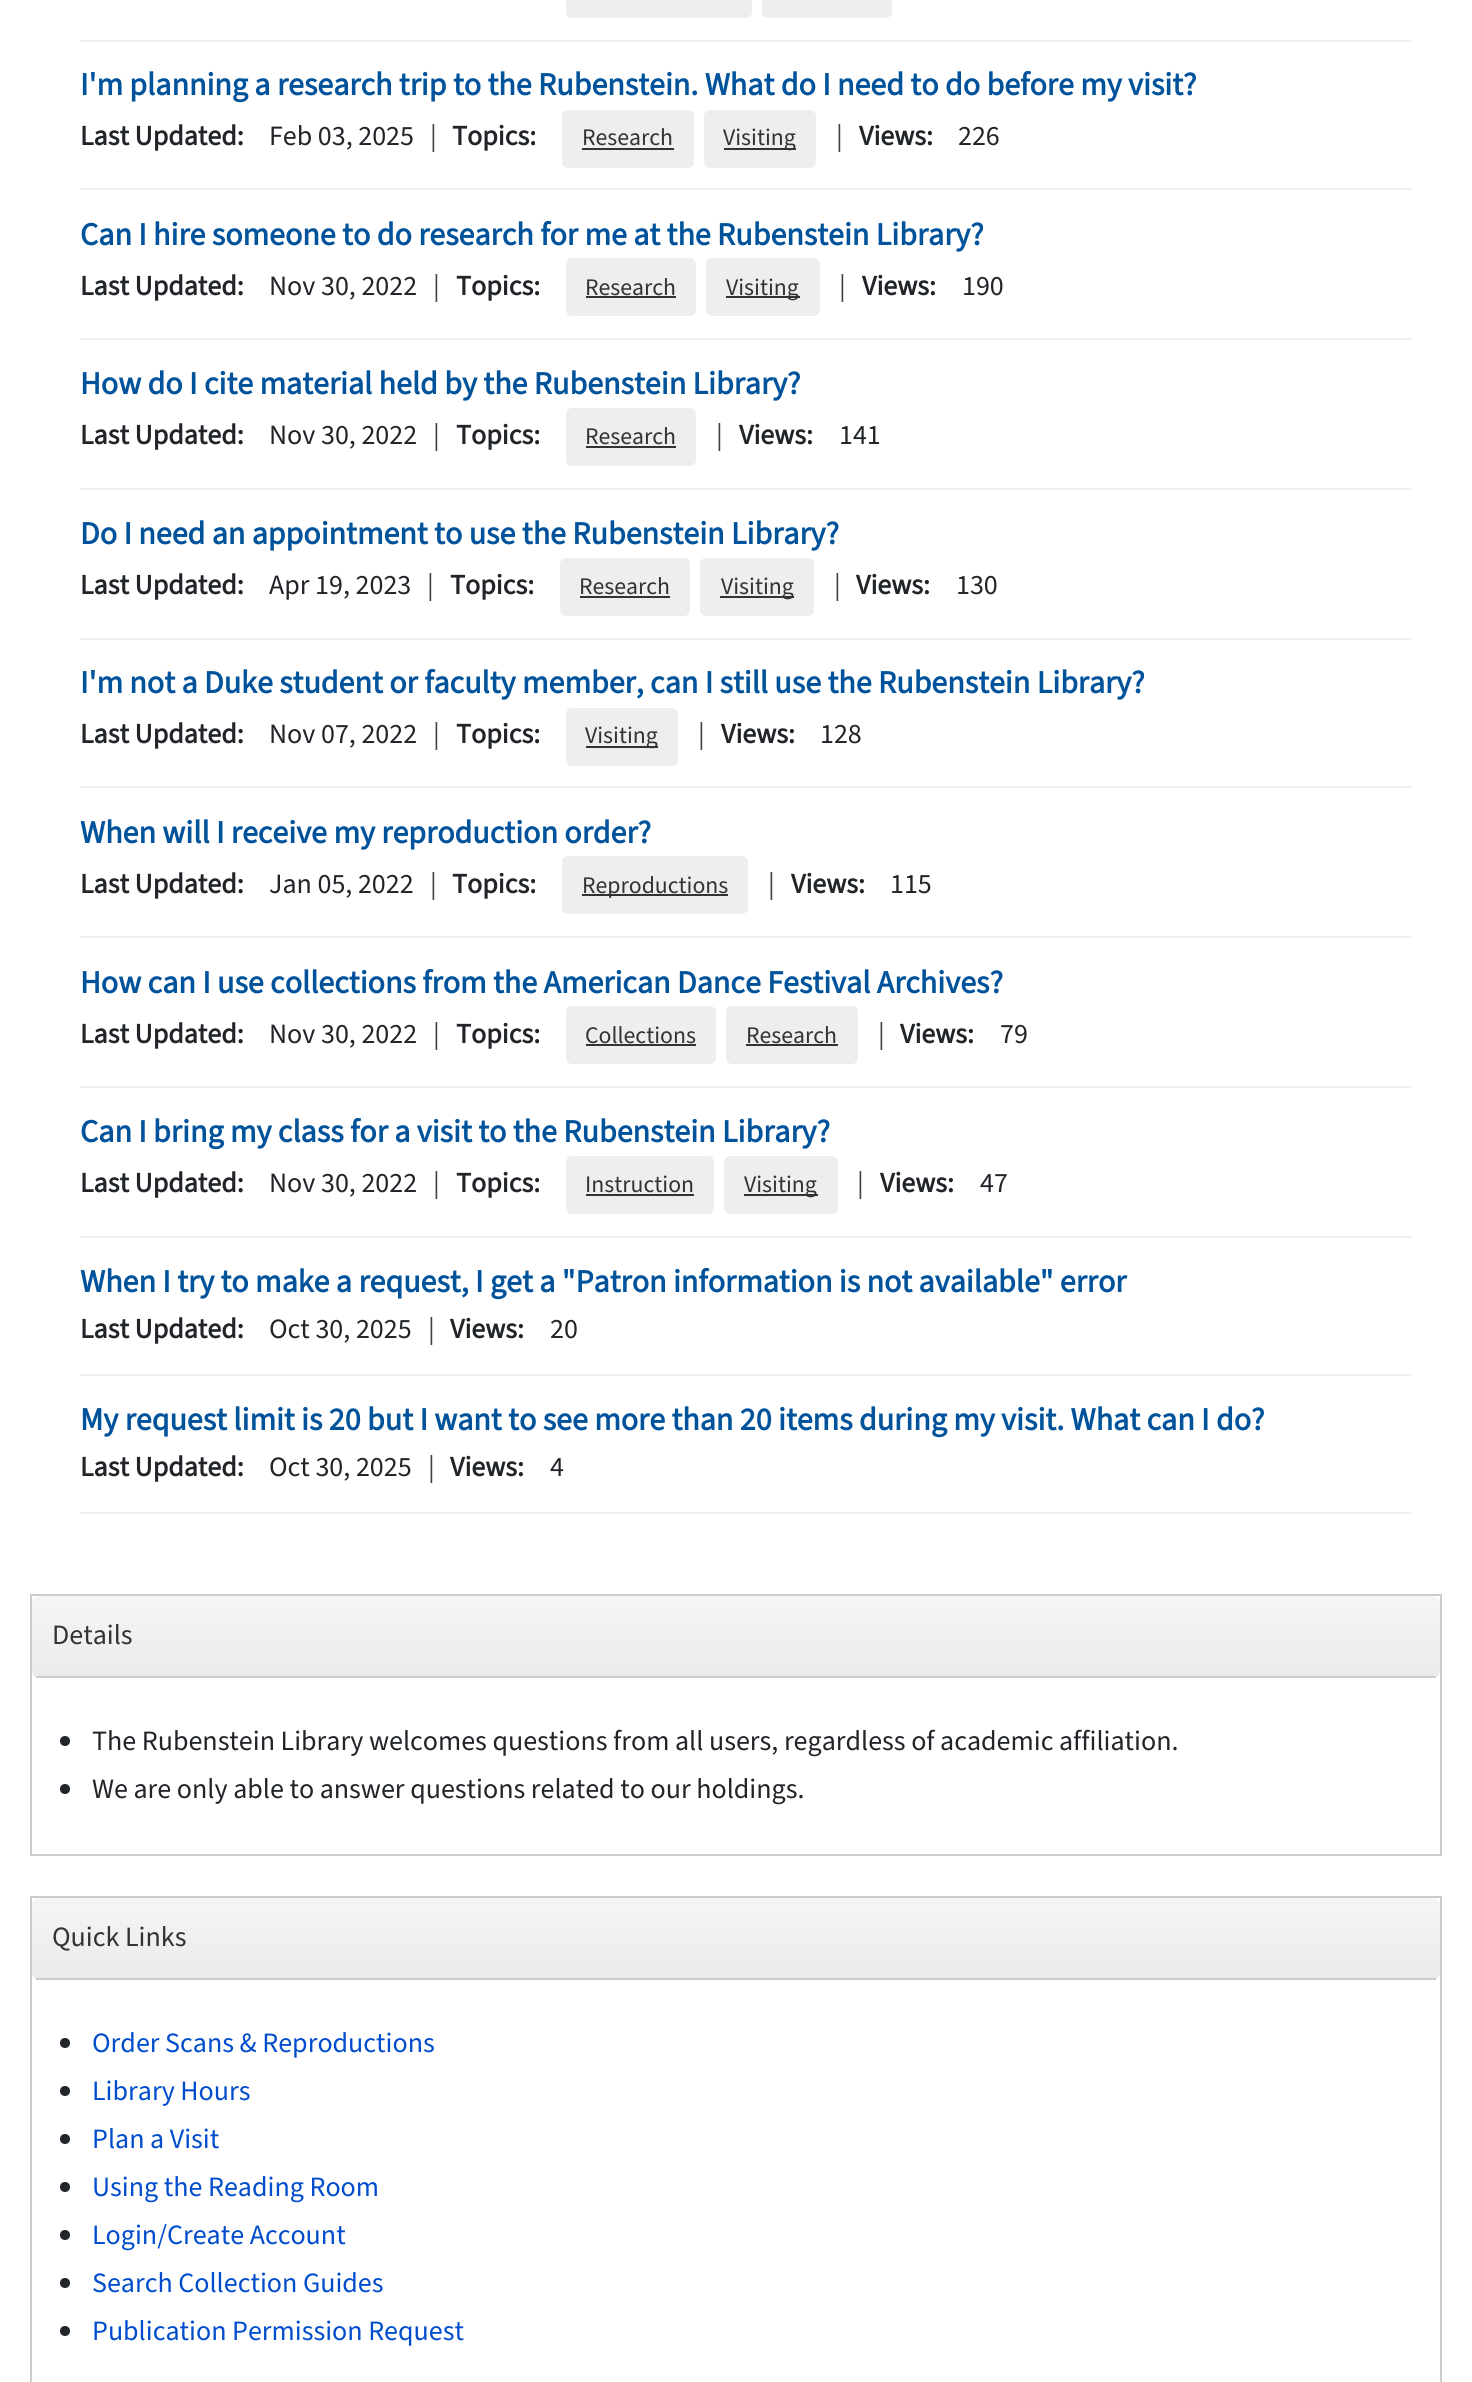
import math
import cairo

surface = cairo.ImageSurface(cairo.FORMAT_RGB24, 1472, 2382)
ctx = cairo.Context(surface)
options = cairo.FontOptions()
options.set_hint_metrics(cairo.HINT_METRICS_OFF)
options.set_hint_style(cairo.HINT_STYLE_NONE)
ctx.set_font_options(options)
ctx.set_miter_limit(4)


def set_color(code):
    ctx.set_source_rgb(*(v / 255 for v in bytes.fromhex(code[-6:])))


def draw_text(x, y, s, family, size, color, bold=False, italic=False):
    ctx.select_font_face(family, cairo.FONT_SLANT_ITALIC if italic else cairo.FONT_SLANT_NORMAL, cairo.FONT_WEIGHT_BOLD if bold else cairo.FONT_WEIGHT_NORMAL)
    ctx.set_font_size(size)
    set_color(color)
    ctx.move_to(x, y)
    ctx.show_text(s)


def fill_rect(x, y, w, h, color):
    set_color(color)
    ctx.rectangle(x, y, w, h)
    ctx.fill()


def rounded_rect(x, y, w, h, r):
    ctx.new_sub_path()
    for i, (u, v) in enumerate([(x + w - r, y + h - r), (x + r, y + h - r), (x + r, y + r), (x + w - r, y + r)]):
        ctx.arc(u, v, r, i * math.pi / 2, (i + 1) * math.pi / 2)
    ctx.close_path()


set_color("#ffffff")
ctx.paint()
fill_rect(80, 40, 1332, 2, "#efefef")
set_color("#eeeeee")
rounded_rect(566, -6, 186, 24, 6)
ctx.fill()
rounded_rect(762, -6, 130, 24, 6)
ctx.fill()
fill_rect(80, 188, 1332, 2, "#efefef")
draw_text(80, 95, "I'm planning a research trip to the Rubenstein. What do I need to do before my visit?", "Source Sans Pro", 32, "#00539b", bold=True)
draw_text(80, 145, "Last Updated:", "Source Sans Pro", 28, "#212529", bold=True)
draw_text(269, 145, "Feb 03, 2025", "Source Sans Pro", 28, "#212529")
draw_text(430, 145, "|", "Source Sans Pro", 28, "#424242")
draw_text(452, 145, "Topics:", "Source Sans Pro", 28, "#212529", bold=True)
set_color("#eeeeee")
rounded_rect(562, 110, 132, 58, 6)
ctx.fill()
draw_text(582, 145, "Research", "Source Sans Pro", 23.75, "#333333")
fill_rect(582, 148, 92, 2, "#333333")
set_color("#eeeeee")
rounded_rect(704, 110, 112, 58, 6)
ctx.fill()
fill_rect(724, 148, 72, 2, "#333333")
draw_text(723, 145, "Visiting", "Source Sans Pro", 23.75, "#333333")
draw_text(836, 145, "|", "Source Sans Pro", 28, "#424242")
draw_text(859, 145, "Views:", "Source Sans Pro", 28, "#212529", bold=True)
draw_text(958, 145, "226", "Source Sans Pro", 28, "#212529")
fill_rect(80, 338, 1332, 2, "#efefef")
draw_text(80, 245, "Can I hire someone to do research for me at the Rubenstein Library?", "Source Sans Pro", 32, "#00539b", bold=True)
draw_text(80, 295, "Last Updated:", "Source Sans Pro", 28, "#212529", bold=True)
draw_text(269, 295, "Nov 30, 2022", "Source Sans Pro", 28, "#212529")
draw_text(433, 295, "|", "Source Sans Pro", 28, "#424242")
draw_text(456, 295, "Topics:", "Source Sans Pro", 28, "#212529", bold=True)
set_color("#eeeeee")
rounded_rect(566, 258, 130, 58, 6)
ctx.fill()
draw_text(585, 295, "Research", "Source Sans Pro", 23.75, "#333333")
fill_rect(586, 296, 90, 2, "#333333")
set_color("#eeeeee")
rounded_rect(706, 258, 114, 58, 6)
ctx.fill()
fill_rect(726, 296, 74, 2, "#333333")
draw_text(726, 295, "Visiting", "Source Sans Pro", 23.75, "#333333")
draw_text(839, 295, "|", "Source Sans Pro", 28, "#424242")
draw_text(862, 295, "Views:", "Source Sans Pro", 28, "#212529", bold=True)
draw_text(962, 295, "190", "Source Sans Pro", 28, "#212529")
fill_rect(80, 488, 1332, 2, "#efefef")
draw_text(80, 394, "How do I cite material held by the Rubenstein Library?", "Source Sans Pro", 32, "#00539b", bold=True)
draw_text(80, 444, "Last Updated:", "Source Sans Pro", 28, "#212529", bold=True)
draw_text(269, 444, "Nov 30, 2022", "Source Sans Pro", 28, "#212529")
draw_text(433, 444, "|", "Source Sans Pro", 28, "#424242")
draw_text(456, 444, "Topics:", "Source Sans Pro", 28, "#212529", bold=True)
set_color("#eeeeee")
rounded_rect(566, 408, 130, 58, 6)
ctx.fill()
draw_text(585, 444, "Research", "Source Sans Pro", 23.75, "#333333")
fill_rect(586, 446, 90, 2, "#333333")
draw_text(716, 444, "|", "Source Sans Pro", 28, "#424242")
draw_text(739, 444, "Views:", "Source Sans Pro", 28, "#212529", bold=True)
draw_text(839, 444, "141", "Source Sans Pro", 28, "#212529")
fill_rect(80, 638, 1332, 2, "#efefef")
draw_text(80, 544, "Do I need an appointment to use the Rubenstein Library?", "Source Sans Pro", 32, "#00539b", bold=True)
draw_text(80, 594, "Last Updated:", "Source Sans Pro", 28, "#212529", bold=True)
draw_text(269, 594, "Apr 19, 2023", "Source Sans Pro", 28, "#212529")
draw_text(427, 594, "|", "Source Sans Pro", 28, "#424242")
draw_text(450, 594, "Topics:", "Source Sans Pro", 28, "#212529", bold=True)
set_color("#eeeeee")
rounded_rect(560, 558, 130, 58, 6)
ctx.fill()
draw_text(579, 594, "Research", "Source Sans Pro", 23.75, "#333333")
fill_rect(580, 596, 90, 2, "#333333")
set_color("#eeeeee")
rounded_rect(700, 558, 114, 58, 6)
ctx.fill()
fill_rect(720, 596, 74, 2, "#333333")
draw_text(721, 594, "Visiting", "Source Sans Pro", 23.75, "#333333")
draw_text(834, 594, "|", "Source Sans Pro", 28, "#424242")
draw_text(856, 594, "Views:", "Source Sans Pro", 28, "#212529", bold=True)
draw_text(956, 594, "130", "Source Sans Pro", 28, "#212529")
fill_rect(80, 786, 1332, 2, "#efefef")
draw_text(80, 693, "I'm not a Duke student or faculty member, can I still use the Rubenstein Library?", "Source Sans Pro", 32, "#00539b", bold=True)
draw_text(80, 743, "Last Updated:", "Source Sans Pro", 28, "#212529", bold=True)
draw_text(269, 743, "Nov 07, 2022", "Source Sans Pro", 28, "#212529")
draw_text(433, 743, "|", "Source Sans Pro", 28, "#424242")
draw_text(456, 743, "Topics:", "Source Sans Pro", 28, "#212529", bold=True)
set_color("#eeeeee")
rounded_rect(566, 708, 112, 58, 6)
ctx.fill()
fill_rect(586, 746, 72, 2, "#333333")
draw_text(585, 743, "Visiting", "Source Sans Pro", 23.75, "#333333")
draw_text(698, 743, "|", "Source Sans Pro", 28, "#424242")
draw_text(721, 743, "Views:", "Source Sans Pro", 28, "#212529", bold=True)
draw_text(820, 743, "128", "Source Sans Pro", 28, "#212529")
fill_rect(80, 936, 1332, 2, "#efefef")
draw_text(80, 843, "When will I receive my reproduction order?", "Source Sans Pro", 32, "#00539b", bold=True)
draw_text(80, 893, "Last Updated:", "Source Sans Pro", 28, "#212529", bold=True)
draw_text(269, 893, "Jan 05, 2022", "Source Sans Pro", 28, "#212529")
draw_text(430, 893, "|", "Source Sans Pro", 28, "#424242")
draw_text(452, 893, "Topics:", "Source Sans Pro", 28, "#212529", bold=True)
set_color("#eeeeee")
rounded_rect(562, 856, 186, 58, 6)
ctx.fill()
fill_rect(582, 894, 146, 2, "#333333")
draw_text(582, 893, "Reproductions", "Source Sans Pro", 23.75, "#333333")
draw_text(768, 893, "|", "Source Sans Pro", 28, "#424242")
draw_text(791, 893, "Views:", "Source Sans Pro", 28, "#212529", bold=True)
draw_text(890, 893, "115", "Source Sans Pro", 28, "#212529")
fill_rect(80, 1086, 1332, 2, "#efefef")
draw_text(80, 993, "How can I use collections from the American Dance Festival Archives?", "Source Sans Pro", 32, "#00539b", bold=True)
draw_text(80, 1043, "Last Updated:", "Source Sans Pro", 28, "#212529", bold=True)
draw_text(269, 1043, "Nov 30, 2022", "Source Sans Pro", 28, "#212529")
draw_text(433, 1043, "|", "Source Sans Pro", 28, "#424242")
draw_text(456, 1043, "Topics:", "Source Sans Pro", 28, "#212529", bold=True)
set_color("#eeeeee")
rounded_rect(566, 1006, 150, 58, 6)
ctx.fill()
draw_text(585, 1043, "Collections", "Source Sans Pro", 23.75, "#333333")
fill_rect(586, 1044, 110, 2, "#333333")
set_color("#eeeeee")
rounded_rect(726, 1006, 132, 58, 6)
ctx.fill()
draw_text(746, 1043, "Research", "Source Sans Pro", 23.75, "#333333")
fill_rect(746, 1044, 92, 2, "#333333")
draw_text(878, 1043, "|", "Source Sans Pro", 28, "#424242")
draw_text(900, 1043, "Views:", "Source Sans Pro", 28, "#212529", bold=True)
draw_text(1000, 1043, "79", "Source Sans Pro", 28, "#212529")
fill_rect(80, 1236, 1332, 2, "#efefef")
draw_text(80, 1142, "Can I bring my class for a visit to the Rubenstein Library?", "Source Sans Pro", 32, "#00539b", bold=True)
draw_text(80, 1192, "Last Updated:", "Source Sans Pro", 28, "#212529", bold=True)
draw_text(269, 1192, "Nov 30, 2022", "Source Sans Pro", 28, "#212529")
draw_text(433, 1192, "|", "Source Sans Pro", 28, "#424242")
draw_text(456, 1192, "Topics:", "Source Sans Pro", 28, "#212529", bold=True)
set_color("#eeeeee")
rounded_rect(566, 1156, 148, 58, 6)
ctx.fill()
draw_text(585, 1192, "Instruction", "Source Sans Pro", 23.75, "#333333")
fill_rect(586, 1194, 108, 2, "#333333")
set_color("#eeeeee")
rounded_rect(724, 1156, 114, 58, 6)
ctx.fill()
fill_rect(744, 1194, 74, 2, "#333333")
draw_text(744, 1192, "Visiting", "Source Sans Pro", 23.75, "#333333")
draw_text(857, 1192, "|", "Source Sans Pro", 28, "#424242")
draw_text(880, 1192, "Views:", "Source Sans Pro", 28, "#212529", bold=True)
draw_text(980, 1192, "47", "Source Sans Pro", 28, "#212529")
fill_rect(80, 1374, 1332, 2, "#efefef")
draw_text(80, 1292, "When I try to make a request, I get a \"Patron information is not available\" error", "Source Sans Pro", 32, "#00539b", bold=True)
draw_text(80, 1338, "Last Updated:", "Source Sans Pro", 28, "#212529", bold=True)
draw_text(269, 1338, "Oct 30, 2025", "Source Sans Pro", 28, "#212529")
draw_text(428, 1338, "|", "Source Sans Pro", 28, "#424242")
draw_text(450, 1338, "Views:", "Source Sans Pro", 28, "#212529", bold=True)
draw_text(550, 1338, "20", "Source Sans Pro", 28, "#212529")
fill_rect(80, 1512, 1332, 2, "#efefef")
draw_text(80, 1430, "My request limit is 20 but I want to see more than 20 items during my visit. What can I do?", "Source Sans Pro", 32, "#00539b", bold=True)
draw_text(80, 1476, "Last Updated:", "Source Sans Pro", 28, "#212529", bold=True)
draw_text(269, 1476, "Oct 30, 2025", "Source Sans Pro", 28, "#212529")
draw_text(428, 1476, "|", "Source Sans Pro", 28, "#424242")
draw_text(450, 1476, "Views:", "Source Sans Pro", 28, "#212529", bold=True)
draw_text(550, 1476, "4", "Source Sans Pro", 28, "#212529")
ctx.rectangle(31, 1595, 1410, 260)
set_color("#cccccc")
ctx.stroke()
set_color("#f5f5f5")
rounded_rect(32, 1596, 1408, 82, 8)
ctx.fill()
ctx.save()
rounded_rect(32, 1596, 1408, 82, 8)
ctx.clip()
gradient = cairo.LinearGradient(736, 1596, 736, 1676)
gradient.add_color_stop_rgba(0, 0.961, 0.961, 0.961, 1)
gradient.add_color_stop_rgba(1, 0.922, 0.922, 0.922, 1)
ctx.set_source(gradient)
ctx.new_path()
ctx.move_to(40, 1596)
ctx.line_to(1432, 1596)
ctx.curve_to(1436.5, 1596, 1440, 1599.5, 1440, 1604)
ctx.line_to(1440, 1676)
ctx.line_to(32, 1676)
ctx.line_to(32, 1604)
ctx.curve_to(32, 1599.5, 35.5, 1596, 40, 1596)
ctx.close_path()
ctx.fill()
ctx.restore()
fill_rect(36, 1676, 1400, 2, "#cccccc")
draw_text(52, 1644, "Details", "Source Sans Pro", 28, "#333333")
set_color("#212529")
ctx.new_path()
ctx.arc(65, 1741, 5, 0, 2 * math.pi)
ctx.fill()
draw_text(92, 1750, "The Rubenstein Library welcomes questions from all users, regardless of academic affiliation.", "Source Sans Pro", 28, "#212529")
ctx.new_path()
ctx.arc(65, 1789, 5, 0, 2 * math.pi)
ctx.fill()
draw_text(92, 1798, "We are only able to answer questions related to our holdings.", "Source Sans Pro", 28, "#212529")
ctx.rectangle(31, 1897, 1410, 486)
set_color("#cccccc")
ctx.stroke()
set_color("#f5f5f5")
rounded_rect(32, 1898, 1408, 82, 8)
ctx.fill()
ctx.save()
rounded_rect(32, 1898, 1408, 82, 8)
ctx.clip()
gradient = cairo.LinearGradient(736, 1898, 736, 1978)
gradient.add_color_stop_rgba(0, 0.961, 0.961, 0.961, 1)
gradient.add_color_stop_rgba(1, 0.922, 0.922, 0.922, 1)
ctx.set_source(gradient)
ctx.new_path()
ctx.move_to(40, 1898)
ctx.line_to(1432, 1898)
ctx.curve_to(1436.5, 1898, 1440, 1901.5, 1440, 1906)
ctx.line_to(1440, 1978)
ctx.line_to(32, 1978)
ctx.line_to(32, 1906)
ctx.curve_to(32, 1901.5, 35.5, 1898, 40, 1898)
ctx.close_path()
ctx.fill()
ctx.restore()
fill_rect(36, 1978, 1400, 2, "#cccccc")
draw_text(52, 1946, "Quick Links", "Source Sans Pro", 28, "#333333")
set_color("#212529")
ctx.new_path()
ctx.arc(65, 2043, 5, 0, 2 * math.pi)
ctx.fill()
draw_text(92, 2052, "Order Scans & Reproductions", "Source Sans Pro", 28, "#004ccc")
set_color("#212529")
ctx.new_path()
ctx.arc(65, 2091, 5, 0, 2 * math.pi)
ctx.fill()
draw_text(92, 2100, "Library Hours", "Source Sans Pro", 28, "#004ccc")
set_color("#212529")
ctx.new_path()
ctx.arc(65, 2139, 5, 0, 2 * math.pi)
ctx.fill()
draw_text(92, 2148, "Plan a Visit", "Source Sans Pro", 28, "#004ccc")
set_color("#212529")
ctx.new_path()
ctx.arc(65, 2187, 5, 0, 2 * math.pi)
ctx.fill()
draw_text(92, 2196, "Using the Reading Room", "Source Sans Pro", 28, "#004ccc")
set_color("#212529")
ctx.new_path()
ctx.arc(65, 2235, 5, 0, 2 * math.pi)
ctx.fill()
draw_text(92, 2244, "Login/Create Account", "Source Sans Pro", 28, "#004ccc")
set_color("#212529")
ctx.new_path()
ctx.arc(65, 2283, 5, 0, 2 * math.pi)
ctx.fill()
draw_text(92, 2292, "Search Collection Guides", "Source Sans Pro", 28, "#004ccc")
set_color("#212529")
ctx.new_path()
ctx.arc(65, 2331, 5, 0, 2 * math.pi)
ctx.fill()
draw_text(92, 2340, "Publication Permission Request", "Source Sans Pro", 28, "#004ccc")
surface.write_to_png("output.png")
